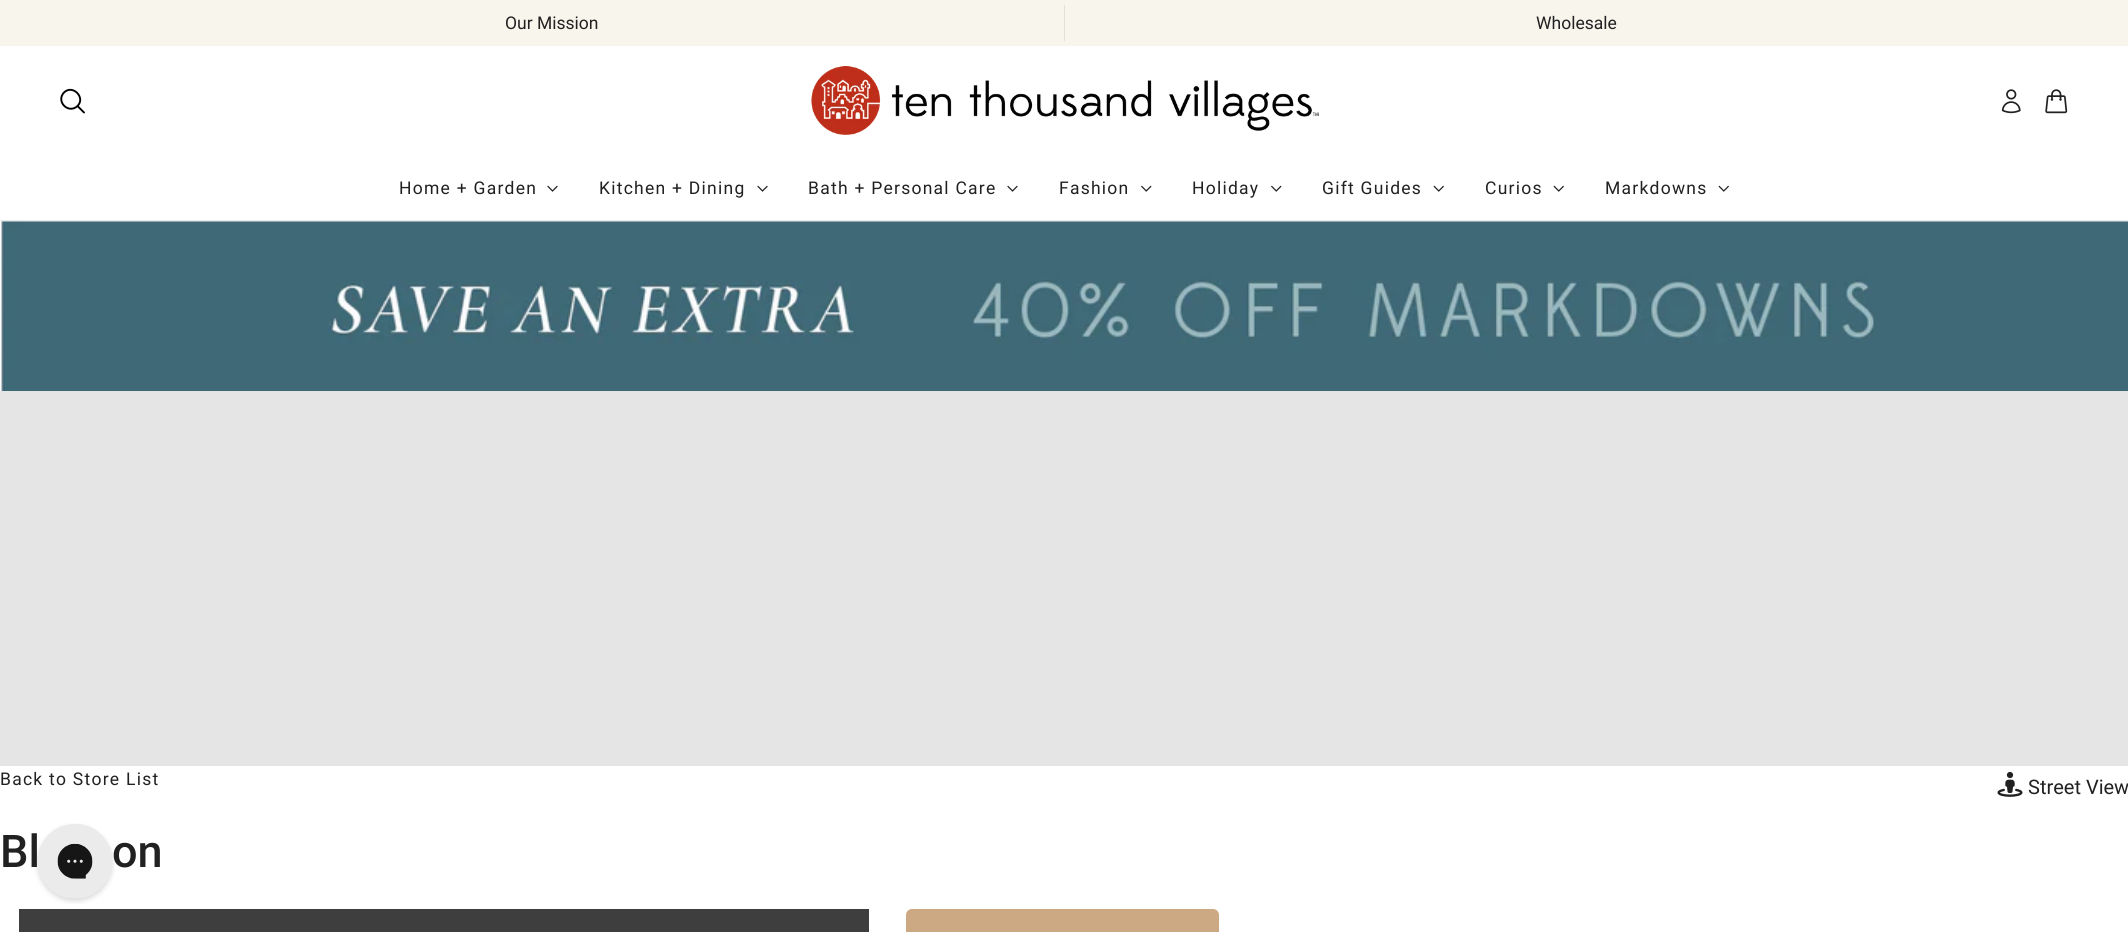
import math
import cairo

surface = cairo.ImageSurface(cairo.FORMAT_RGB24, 2128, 932)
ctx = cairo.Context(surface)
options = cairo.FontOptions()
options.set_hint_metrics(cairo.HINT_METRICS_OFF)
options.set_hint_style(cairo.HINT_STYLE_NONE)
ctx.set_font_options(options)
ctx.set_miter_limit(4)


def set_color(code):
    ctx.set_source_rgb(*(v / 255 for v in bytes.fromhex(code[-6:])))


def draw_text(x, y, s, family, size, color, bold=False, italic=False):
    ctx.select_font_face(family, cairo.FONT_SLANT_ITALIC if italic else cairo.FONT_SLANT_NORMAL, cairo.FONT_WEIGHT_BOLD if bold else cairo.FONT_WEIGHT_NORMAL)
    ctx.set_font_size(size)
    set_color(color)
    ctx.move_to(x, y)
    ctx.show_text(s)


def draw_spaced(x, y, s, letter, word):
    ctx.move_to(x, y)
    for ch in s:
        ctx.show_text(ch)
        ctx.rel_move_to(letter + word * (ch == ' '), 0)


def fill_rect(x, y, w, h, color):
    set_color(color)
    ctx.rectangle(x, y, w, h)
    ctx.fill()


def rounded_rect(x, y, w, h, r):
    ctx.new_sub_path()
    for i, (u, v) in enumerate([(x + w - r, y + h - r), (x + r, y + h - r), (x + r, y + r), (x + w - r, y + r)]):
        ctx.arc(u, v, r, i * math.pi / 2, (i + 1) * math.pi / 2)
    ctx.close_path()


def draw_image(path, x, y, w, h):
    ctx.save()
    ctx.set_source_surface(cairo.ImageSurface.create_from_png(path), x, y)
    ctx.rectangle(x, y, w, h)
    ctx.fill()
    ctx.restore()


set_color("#ffffff")
ctx.paint()
fill_rect(0, 0, 2128, 46, "#f8f5ed")
fill_rect(1064, 5, 1, 36, "#e3e0d9")
draw_text(505, 29, "Our Mission", "Roboto", 17.5, "#212121")
draw_text(1536, 29, "Wholesale", "Roboto", 17.5, "#212121")
ctx.new_path()
ctx.move_to(84, 112.5)
ctx.line_to(77.5, 106)
ctx.move_to(77.5, 106)
ctx.curve_to(86, 97.5, 72.5, 84, 64, 92.5)
ctx.curve_to(55.5, 101.5, 68.5, 114.5, 77.5, 106)
ctx.close_path()
set_color("#000000")
ctx.set_line_width(1.9)
ctx.set_line_cap(cairo.LINE_CAP_ROUND)
ctx.set_line_join(cairo.LINE_JOIN_ROUND)
ctx.stroke()
draw_image("assets/img1.png", 811, 66, 508, 69)
draw_image("assets/img2.png", 2001, 89, 20, 25)
draw_image("assets/img3.png", 2045, 89, 23, 25)
set_color("#212121")
draw_spaced(399, 194, "Home + Garden", 1.25, 0)
draw_image("assets/img4.png", 547, 185, 11, 7)
draw_spaced(599, 194, "Kitchen + Dining", 1.25, 0)
draw_image("assets/img4.png", 757, 185, 11, 7)
draw_spaced(808, 194, "Bath + Personal Care", 1.25, 0)
draw_image("assets/img4.png", 1007, 185, 11, 7)
draw_spaced(1059, 194, "Fashion", 1.25, 0)
draw_image("assets/img5.png", 1141, 185, 11, 7)
draw_spaced(1192, 194, "Holiday", 1.25, 0)
draw_image("assets/img5.png", 1271, 185, 11, 7)
draw_spaced(1322, 194, "Gift Guides", 1.25, 0)
draw_image("assets/img6.png", 1433, 185, 11, 7)
draw_spaced(1485, 194, "Curios", 1.25, 0)
draw_image("assets/img6.png", 1553, 185, 11, 7)
draw_spaced(1605, 194, "Markdowns", 1.25, 0)
draw_image("assets/img6.png", 1718, 185, 11, 7)
fill_rect(0, 220, 2128, 1, "#e9e9e9")
draw_image("assets/img7.png", 0, 221, 2128, 170)
fill_rect(0, 391, 2128, 375, "#e5e5e5")
set_color("#212121")
draw_spaced(0, 785, "Back to Store List", 1.25, 0)
draw_text(0, 867, "Bl", "Roboto Medium", 45, "#212121")
draw_text(112, 867, "on", "Roboto Medium", 45, "#212121")
draw_image("assets/img8.png", 1997, 771, 26, 26)
draw_text(2028, 794, "Street View", "Roboto", 20, "#212121")
fill_rect(19, 909, 850, 23, "#3e3e3e")
set_color("#cca982")
rounded_rect(906, 909, 313, 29, 6)
ctx.fill()
draw_image("assets/img9.png", 35, 823, 80, 81)
surface.write_to_png("output.png")
